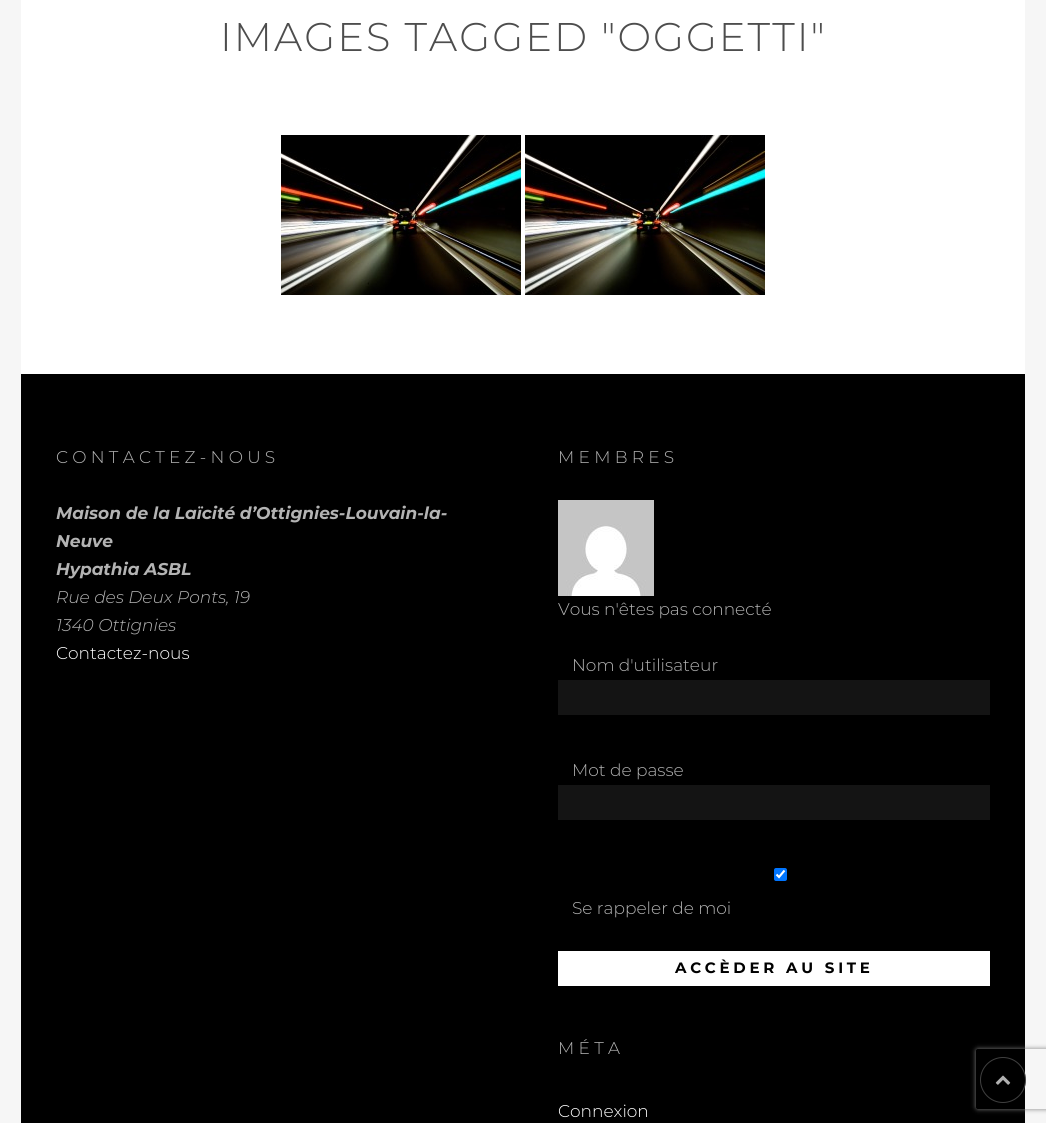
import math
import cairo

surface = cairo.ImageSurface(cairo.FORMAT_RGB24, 1046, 1123)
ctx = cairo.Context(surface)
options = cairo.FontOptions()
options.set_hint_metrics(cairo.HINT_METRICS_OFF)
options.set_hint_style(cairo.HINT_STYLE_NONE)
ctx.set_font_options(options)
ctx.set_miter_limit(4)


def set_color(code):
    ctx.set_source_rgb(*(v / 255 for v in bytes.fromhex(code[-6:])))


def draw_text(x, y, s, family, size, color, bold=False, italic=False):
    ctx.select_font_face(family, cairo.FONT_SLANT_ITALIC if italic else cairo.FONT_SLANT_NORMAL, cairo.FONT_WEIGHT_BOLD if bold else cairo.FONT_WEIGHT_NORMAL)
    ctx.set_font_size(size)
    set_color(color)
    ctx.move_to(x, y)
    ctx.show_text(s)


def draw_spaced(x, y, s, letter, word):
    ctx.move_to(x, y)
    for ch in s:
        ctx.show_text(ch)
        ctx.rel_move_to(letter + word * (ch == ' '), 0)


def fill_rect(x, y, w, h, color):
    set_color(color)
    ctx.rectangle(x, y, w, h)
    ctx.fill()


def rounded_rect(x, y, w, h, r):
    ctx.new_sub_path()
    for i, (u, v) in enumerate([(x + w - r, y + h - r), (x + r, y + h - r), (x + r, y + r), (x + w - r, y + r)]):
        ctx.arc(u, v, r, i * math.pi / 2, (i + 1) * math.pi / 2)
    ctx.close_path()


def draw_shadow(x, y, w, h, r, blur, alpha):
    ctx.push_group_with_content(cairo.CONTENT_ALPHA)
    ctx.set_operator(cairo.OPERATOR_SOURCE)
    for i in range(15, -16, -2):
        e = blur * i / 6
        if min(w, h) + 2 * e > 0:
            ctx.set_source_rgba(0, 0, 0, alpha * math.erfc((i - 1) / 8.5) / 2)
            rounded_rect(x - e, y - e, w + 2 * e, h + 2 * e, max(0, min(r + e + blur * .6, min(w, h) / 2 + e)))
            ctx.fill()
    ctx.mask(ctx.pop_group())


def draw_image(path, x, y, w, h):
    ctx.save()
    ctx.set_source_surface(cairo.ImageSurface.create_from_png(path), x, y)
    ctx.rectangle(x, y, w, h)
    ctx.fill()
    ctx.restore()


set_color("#f6f6f6")
ctx.paint()
fill_rect(21, 0, 1004, 374, "#ffffff")
ctx.select_font_face("Montserrat Light")
ctx.set_font_size(40)
set_color("#4d4d4d")
draw_spaced(220, 51, "IMAGES TAGGED \"OGGETTI\"", 2, 0)
draw_image("assets/img1.png", 281, 135, 240, 160)
draw_image("assets/img2.png", 525, 135, 240, 160)
fill_rect(21, 374, 1004, 749, "#000000")
ctx.set_font_size(17)
set_color("#b3b3b3")
draw_spaced(56, 463, "CONTACTEZ-NOUS", 4.25, 0)
draw_text(56, 519, "Maison de la Laïcité d’Ottignies-Louvain-la-", "Montserrat", 17, "#b3b3b3", bold=True, italic=True)
draw_text(56, 547, "Neuve", "Montserrat", 17, "#b3b3b3", bold=True, italic=True)
draw_text(56, 575, "Hypathia ASBL", "Montserrat", 17, "#b3b3b3", bold=True, italic=True)
draw_text(56, 603, "Rue des Deux Ponts, 19", "Montserrat Light", 17, "#b3b3b3", italic=True)
draw_text(56, 631, "1340 Ottignies", "Montserrat Light", 17, "#b3b3b3", italic=True)
draw_text(56, 659, "Contactez-nous", "Montserrat Light", 17, "#ffffff")
set_color("#b3b3b3")
draw_spaced(558, 463, "MEMBRES", 4.25, 0)
draw_image("assets/img3.png", 558, 500, 96, 96)
draw_text(558, 615, "Vous n'êtes pas connecté", "Montserrat Light", 17, "#b3b3b3")
draw_text(572, 671, "Nom d'utilisateur", "Montserrat Light", 17, "#b3b3b3")
fill_rect(558, 680, 432, 35, "#141414")
draw_text(572, 776, "Mot de passe", "Montserrat Light", 17, "#b3b3b3")
fill_rect(558, 785, 432, 35, "#141414")
set_color("#0075ff")
rounded_rect(774, 868, 13, 13, 2)
ctx.fill()
ctx.new_path()
ctx.move_to(776.5, 874.5)
ctx.line_to(779, 877)
ctx.line_to(784.5, 870.5)
set_color("#ffffff")
ctx.set_line_width(2.1)
ctx.stroke()
draw_text(572, 914, "Se rappeler de moi", "Montserrat Light", 17, "#b3b3b3")
fill_rect(558, 951, 432, 35, "#ffffff")
ctx.select_font_face("Montserrat", cairo.FONT_SLANT_NORMAL, cairo.FONT_WEIGHT_BOLD)
ctx.set_font_size(15)
set_color("#000000")
draw_spaced(675, 973, "ACCÈDER AU SITE", 3.75, 0)
ctx.select_font_face("Montserrat Light")
ctx.set_font_size(17)
set_color("#b3b3b3")
draw_spaced(558, 1054, "MÉTA", 4.25, 0)
draw_text(558, 1117, "Connexion", "Montserrat Light", 17, "#ffffff")
ctx.save()
ctx.set_fill_rule(cairo.FILL_RULE_EVEN_ODD)
ctx.new_path()
ctx.move_to(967, 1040)
ctx.line_to(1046, 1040)
ctx.line_to(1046, 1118)
ctx.line_to(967, 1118)
ctx.close_path()
ctx.move_to(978, 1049)
ctx.line_to(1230, 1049)
ctx.curve_to(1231, 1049, 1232, 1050, 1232, 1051)
ctx.line_to(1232, 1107)
ctx.curve_to(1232, 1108, 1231, 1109, 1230, 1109)
ctx.line_to(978, 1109)
ctx.curve_to(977, 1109, 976, 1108, 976, 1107)
ctx.line_to(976, 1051)
ctx.curve_to(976, 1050, 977, 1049, 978, 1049)
ctx.close_path()
ctx.clip()
set_color("#808080")
draw_shadow(976, 1049, 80, 60, 2, 2.5, 1)
ctx.restore()
ctx.set_source_rgba(0, 0, 0, 0.98)
ctx.arc(1003, 1080, 23, 0, 2 * math.pi)
ctx.fill()
ctx.arc(1003, 1080, 22.5, 0, 2 * math.pi)
ctx.set_source_rgba(1, 1, 1, 0.25)
ctx.set_line_width(1)
ctx.stroke()
draw_image("assets/img4.png", 995, 1075, 16, 10)
surface.write_to_png("output.png")
